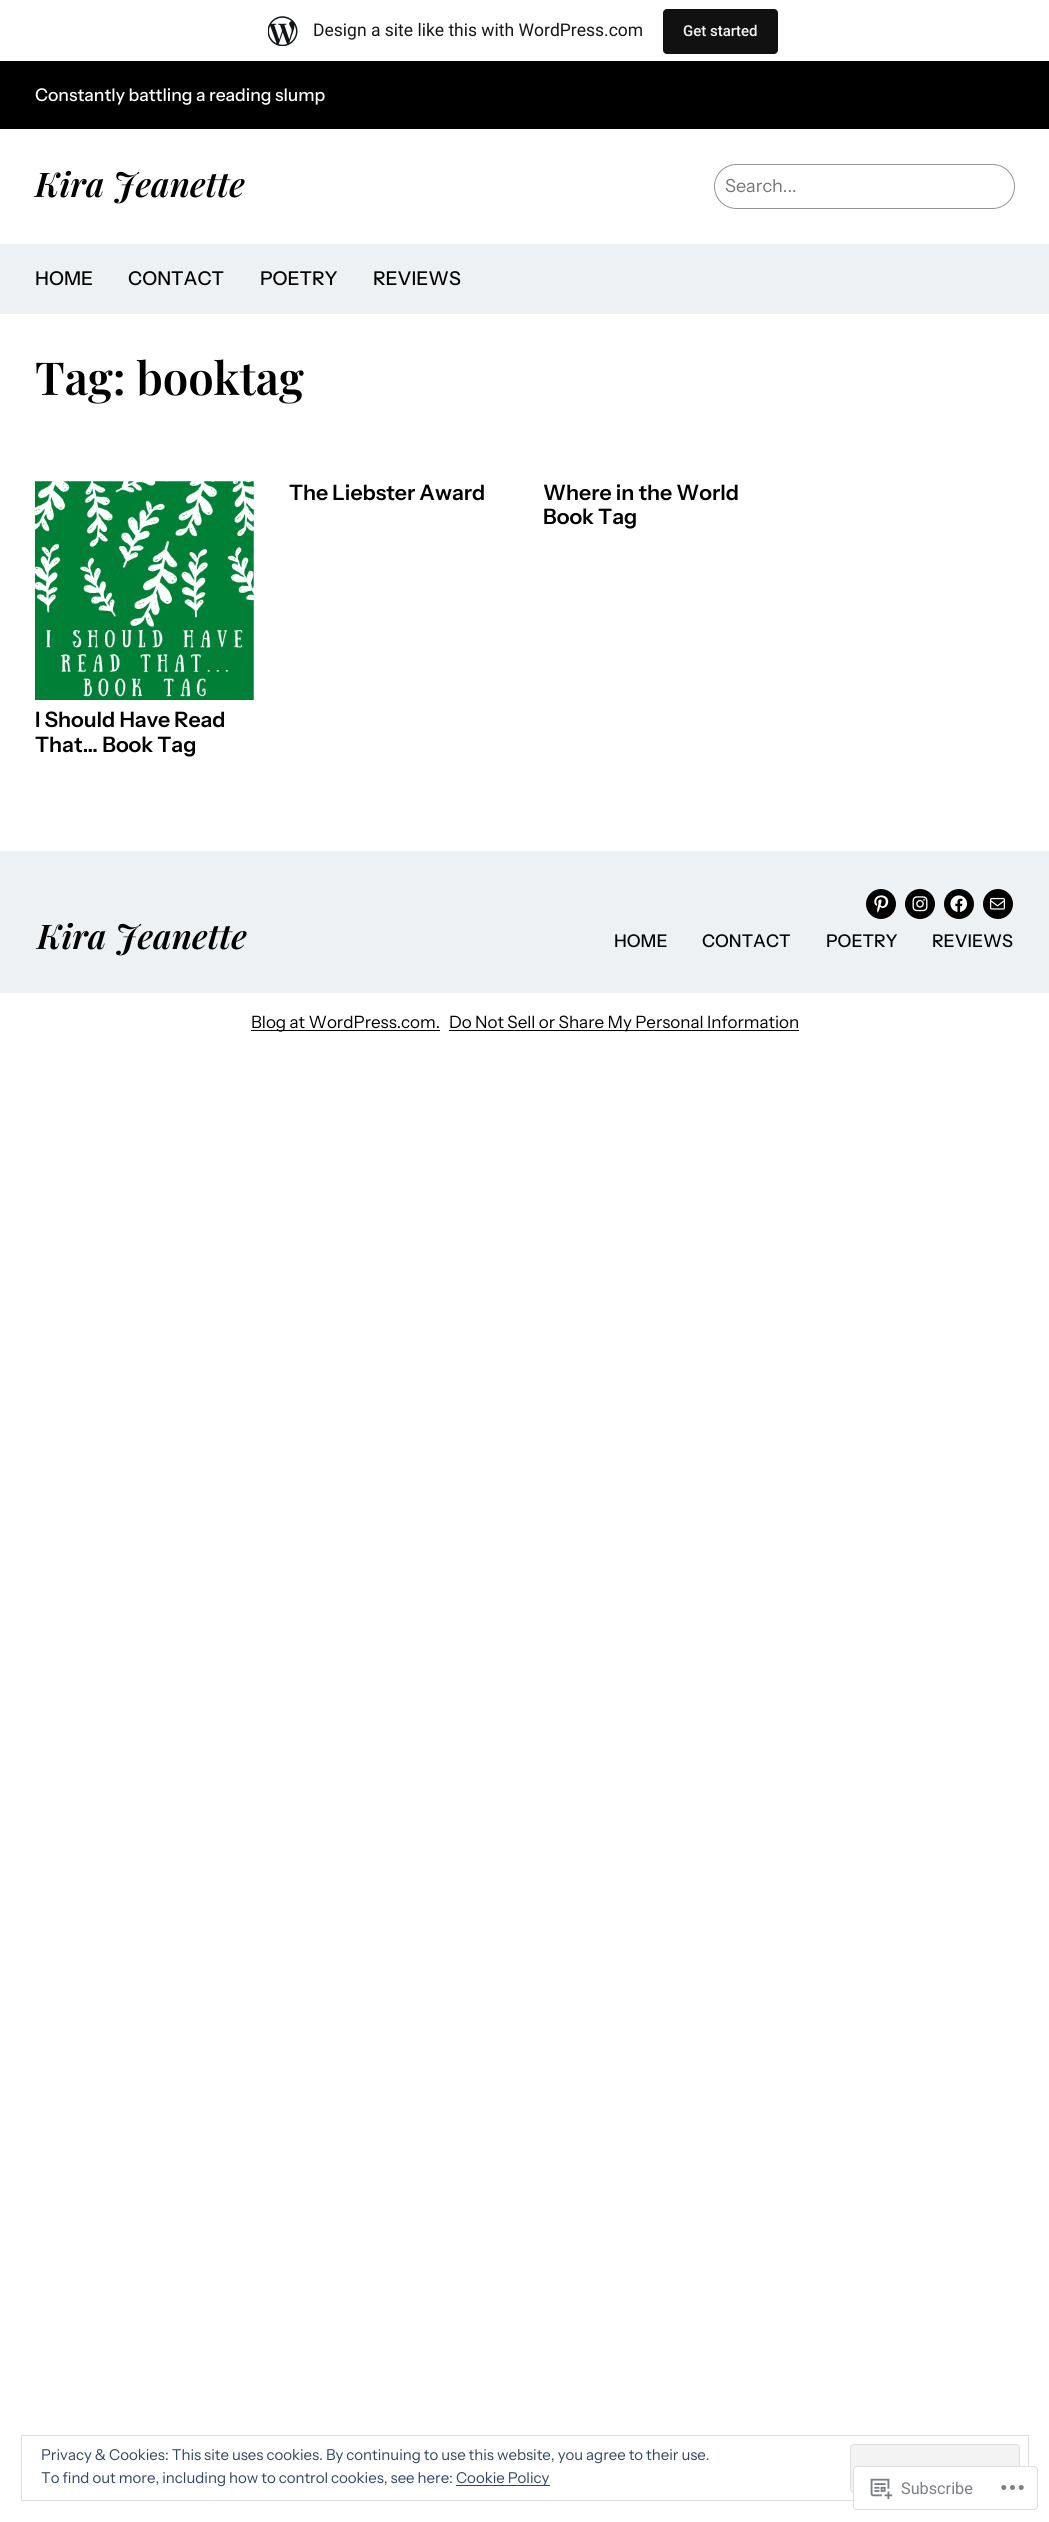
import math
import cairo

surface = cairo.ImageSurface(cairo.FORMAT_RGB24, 1049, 2522)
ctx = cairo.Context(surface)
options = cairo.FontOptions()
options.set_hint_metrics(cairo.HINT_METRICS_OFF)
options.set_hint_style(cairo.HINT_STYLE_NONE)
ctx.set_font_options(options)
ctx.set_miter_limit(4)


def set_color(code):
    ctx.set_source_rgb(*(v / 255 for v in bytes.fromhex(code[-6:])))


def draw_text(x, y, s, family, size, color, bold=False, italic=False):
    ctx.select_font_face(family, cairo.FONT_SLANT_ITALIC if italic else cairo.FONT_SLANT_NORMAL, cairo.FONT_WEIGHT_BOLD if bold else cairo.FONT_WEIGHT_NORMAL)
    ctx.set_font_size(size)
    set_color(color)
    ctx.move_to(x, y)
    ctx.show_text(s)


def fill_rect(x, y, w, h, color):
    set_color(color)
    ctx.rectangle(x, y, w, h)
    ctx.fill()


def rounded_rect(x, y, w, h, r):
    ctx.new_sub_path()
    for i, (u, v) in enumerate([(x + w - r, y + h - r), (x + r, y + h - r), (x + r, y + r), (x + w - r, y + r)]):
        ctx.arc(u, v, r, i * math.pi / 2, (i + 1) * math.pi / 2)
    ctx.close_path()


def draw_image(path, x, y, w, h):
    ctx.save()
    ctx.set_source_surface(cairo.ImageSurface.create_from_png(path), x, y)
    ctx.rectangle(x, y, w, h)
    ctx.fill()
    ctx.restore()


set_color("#ffffff")
ctx.paint()
draw_image("assets/img1.png", 268, 16, 30, 30)
draw_text(313, 36, "Design a site like this with WordPress.com", "Roboto", 17.5, "#171717")
set_color("#111111")
rounded_rect(663, 9, 115, 45, 4)
ctx.fill()
draw_text(683, 36, "Get started", "Roboto Medium", 15, "#f6f7f7")
fill_rect(0, 61, 1049, 68, "#000000")
draw_text(35, 101, "Constantly battling a reading slump", "Instrument Sans Medium", 17.5, "#ffffff")
draw_text(35, 197, "Kira Jeanette", "Playfair Display SemiBold", 34, "#000000", italic=True)
rounded_rect(714.5, 164.5, 300, 44, 22)
set_color("#949494")
ctx.set_line_width(1)
ctx.stroke()
draw_text(725, 192, "Search...", "Instrument Sans", 18, "#757575")
fill_rect(0, 244, 1049, 70, "#edf1f4")
draw_text(35, 285, "HOME", "Instrument Sans Medium", 19, "#000000")
draw_text(128, 285, "CONTACT", "Instrument Sans Medium", 19, "#000000")
draw_text(260, 285, "POETRY", "Instrument Sans Medium", 19, "#000000")
draw_text(373, 285, "REVIEWS", "Instrument Sans Medium", 19, "#000000")
draw_text(35, 395, "Tag: booktag", "Playfair Display SemiBold", 45.5, "#000000")
draw_text(289, 500, "The Liebster Award", "Instrument Sans SemiBold", 21.25, "#000000")
draw_text(543, 500, "Where in the World", "Instrument Sans SemiBold", 21.25, "#000000")
draw_text(543, 524, "Book Tag", "Instrument Sans SemiBold", 21.25, "#000000")
draw_image("assets/img2.png", 35, 481, 219, 219)
draw_text(35, 727, "I Should Have Read", "Instrument Sans SemiBold", 21.25, "#000000")
draw_text(35, 752, "That… Book Tag", "Instrument Sans SemiBold", 21.25, "#000000")
fill_rect(0, 851, 1049, 142, "#edf1f4")
draw_text(37, 949, "Kira Jeanette", "Playfair Display SemiBold", 34, "#000000", italic=True)
ctx.new_path()
ctx.arc(881, 904, 15, 0, 2 * math.pi)
ctx.fill()
draw_image("assets/img3.png", 874, 895, 15, 18)
ctx.arc(920, 904, 15, 0, 2 * math.pi)
ctx.fill()
draw_image("assets/img4.png", 912, 896, 16, 16)
ctx.arc(959, 904, 15, 0, 2 * math.pi)
ctx.fill()
draw_image("assets/img5.png", 950, 895, 18, 17)
ctx.arc(998, 904, 15, 0, 2 * math.pi)
ctx.fill()
draw_image("assets/img6.png", 990, 897, 15, 13)
draw_text(614, 947, "HOME", "Instrument Sans Medium", 17.5, "#000000")
draw_text(702, 947, "CONTACT", "Instrument Sans Medium", 17.5, "#000000")
draw_text(826, 947, "POETRY", "Instrument Sans Medium", 17.5, "#000000")
draw_text(932, 947, "REVIEWS", "Instrument Sans Medium", 17.5, "#000000")
fill_rect(251, 1030, 189, 1, "#000000")
draw_text(251, 1028, "Blog at WordPress.com.", "Instrument Sans", 17, "#000000")
fill_rect(449, 1030, 350, 1, "#000000")
draw_text(449, 1028, "Do Not Sell or Share My Personal Information", "Instrument Sans", 17, "#000000")
ctx.rectangle(21.5, 2435.5, 1007, 65)
set_color("#dedede")
ctx.stroke()
draw_text(41, 2460, "Privacy & Cookies: This site uses cookies. By continuing to use this website, you agree to their use.", "Instrument Sans", 15, "#2e4467")
set_color("#f3f3f3")
rounded_rect(850.5, 2444.5, 169, 48, 3.5)
ctx.fill_preserve()
set_color("#dedede")
ctx.stroke()
draw_text(41, 2483, "To find out more, including how to control cookies, see here:", "Instrument Sans", 15, "#2e4467")
fill_rect(456, 2485, 94, 1, "#2e4467")
draw_text(456, 2483, "Cookie Policy", "Instrument Sans", 15, "#2e4467")
ctx.set_source_rgba(1, 1, 1, 0.98)
rounded_rect(853, 2466, 185, 44, 4)
ctx.fill()
rounded_rect(853.5, 2466.5, 184, 43, 3.5)
ctx.set_source_rgba(0.863, 0.863, 0.871, 0.98)
ctx.stroke()
draw_image("assets/img7.png", 870, 2478, 23, 22)
draw_text(901, 2494, "Subscribe", "Roboto", 16.25, "#7b7f84")
draw_image("assets/img8.png", 1001, 2485, 23, 5)
surface.write_to_png("output.png")
